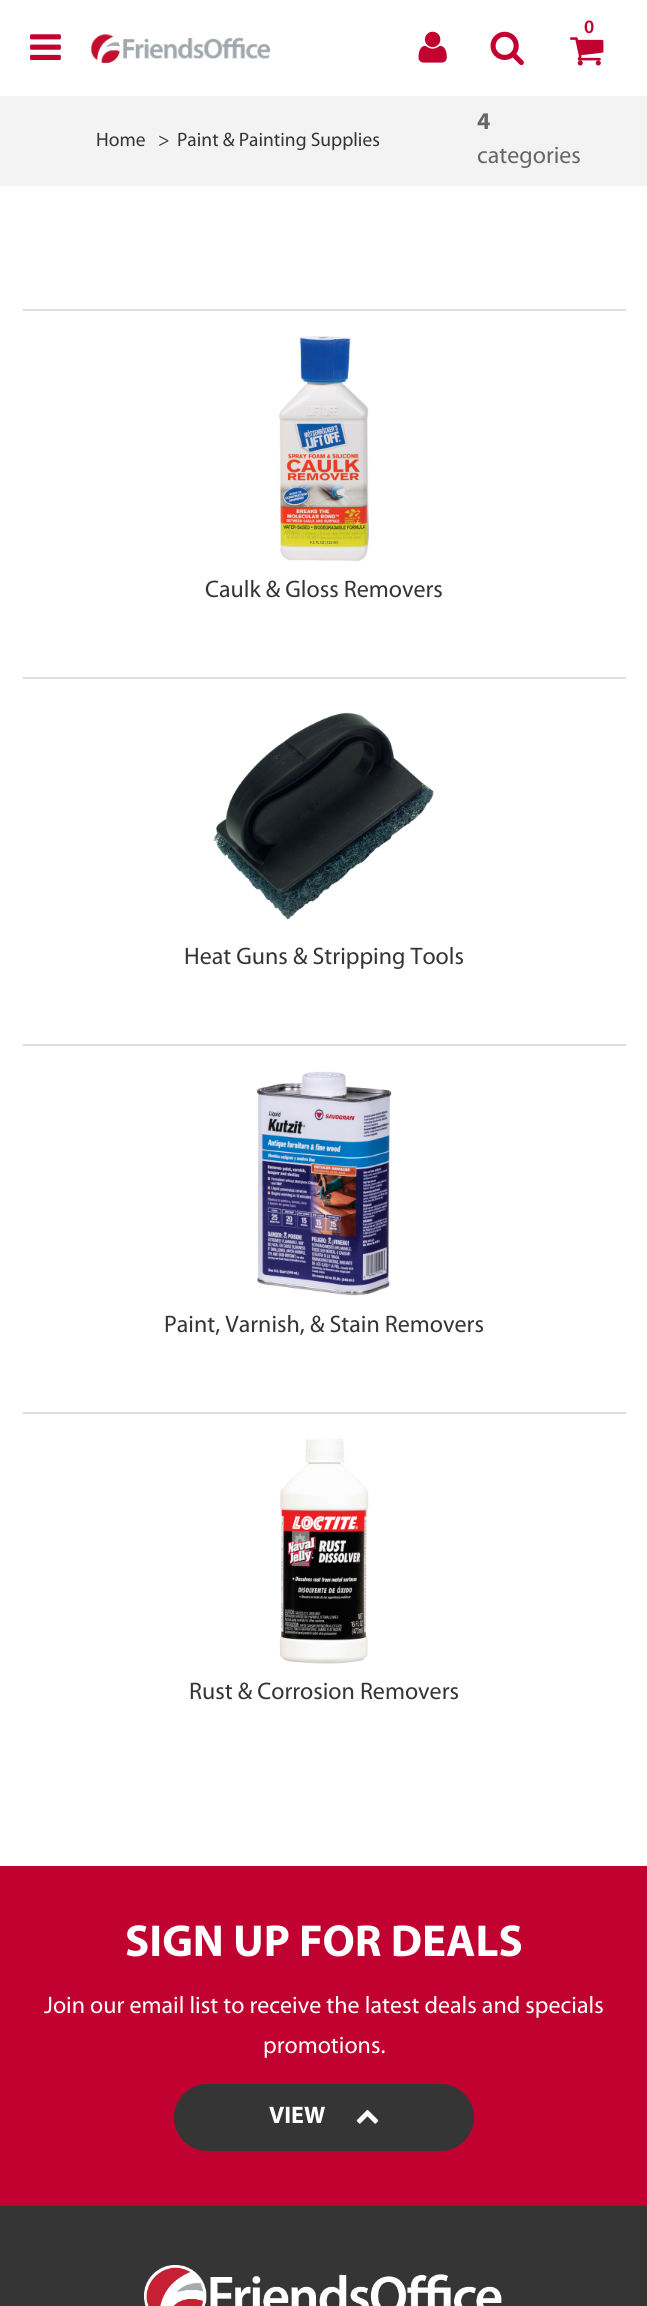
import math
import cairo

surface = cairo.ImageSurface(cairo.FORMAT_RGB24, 647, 2306)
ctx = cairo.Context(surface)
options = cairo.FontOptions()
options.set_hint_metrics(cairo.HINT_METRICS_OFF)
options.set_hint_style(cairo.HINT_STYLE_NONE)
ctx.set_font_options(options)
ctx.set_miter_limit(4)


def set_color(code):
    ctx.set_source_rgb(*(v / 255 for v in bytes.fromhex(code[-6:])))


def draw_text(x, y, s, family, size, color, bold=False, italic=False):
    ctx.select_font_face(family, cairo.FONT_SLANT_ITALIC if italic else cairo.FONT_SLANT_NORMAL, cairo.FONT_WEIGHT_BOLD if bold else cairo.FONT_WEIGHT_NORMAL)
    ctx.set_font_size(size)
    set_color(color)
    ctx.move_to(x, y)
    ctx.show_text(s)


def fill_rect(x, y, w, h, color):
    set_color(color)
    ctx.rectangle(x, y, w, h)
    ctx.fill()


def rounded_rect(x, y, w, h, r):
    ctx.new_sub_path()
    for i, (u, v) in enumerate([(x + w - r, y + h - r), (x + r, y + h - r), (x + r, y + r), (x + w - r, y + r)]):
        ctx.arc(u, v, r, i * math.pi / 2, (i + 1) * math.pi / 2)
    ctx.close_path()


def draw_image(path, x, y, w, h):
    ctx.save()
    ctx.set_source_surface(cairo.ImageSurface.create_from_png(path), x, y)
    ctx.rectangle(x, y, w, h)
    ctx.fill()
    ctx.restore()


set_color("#ffffff")
ctx.paint()
draw_text(584, 33, "0", "Myriad SemiBold", 19, "#c10230")
draw_image("assets/img1.png", 570, 37, 34, 29)
draw_image("assets/img2.png", 418, 31, 29, 32)
draw_image("assets/img3.png", 490, 31, 34, 35)
draw_image("assets/img4.png", 30, 34, 31, 26)
draw_image("assets/img5.png", 91, 34, 179, 30)
fill_rect(0, 96, 647, 90, "#f3f3f3")
draw_text(96, 146, "Home", "Myriad", 19.5, "#353535")
draw_text(158, 146, ">", "Myriad", 19.5, "#353535")
draw_text(177, 146, "Paint & Painting Supplies", "Myriad", 19.5, "#353535")
draw_text(477, 129, "4", "Myriad", 24, "#676767", bold=True)
draw_text(477, 163, "categories", "Myriad", 24, "#676767")
fill_rect(23, 309, 603, 2, "#dddddd")
draw_image("assets/img6.png", 279, 336, 90, 225)
draw_text(205, 597, "Caulk & Gloss Removers", "Myriad", 24, "#353535")
fill_rect(23, 677, 603, 2, "#dddddd")
draw_image("assets/img7.png", 213, 712, 221, 208)
draw_text(184, 964, "Heat Guns & Stripping Tools", "Myriad", 24, "#353535")
fill_rect(23, 1044, 603, 2, "#dddddd")
draw_image("assets/img8.png", 256, 1071, 136, 225)
draw_text(164, 1332, "Paint, Varnish, & Stain Removers", "Myriad", 24, "#353535")
fill_rect(23, 1412, 603, 2, "#dddddd")
draw_image("assets/img9.png", 279, 1438, 90, 226)
draw_text(189, 1699, "Rust & Corrosion Removers", "Myriad", 24, "#353535")
fill_rect(0, 2206, 647, 100, "#353535")
fill_rect(0, 1866, 647, 340, "#c10230")
draw_text(125, 1956, "SIGN UP FOR DEALS", "Myriad", 45, "#ffffff", bold=True)
draw_text(44, 2013, "Join our email list to receive the latest deals and specials", "Myriad", 24, "#ffffff")
draw_text(263, 2053, "promotions.", "Myriad", 24, "#ffffff")
set_color("#353535")
rounded_rect(174, 2084, 300, 67, 33.5)
ctx.fill()
draw_text(269, 2123, "VIEW", "Myriad", 24, "#ffffff", bold=True)
draw_image("assets/img10.png", 356, 2109, 23, 15)
draw_image("assets/img11.png", 144, 2265, 358, 41)
surface.write_to_png("output.png")
